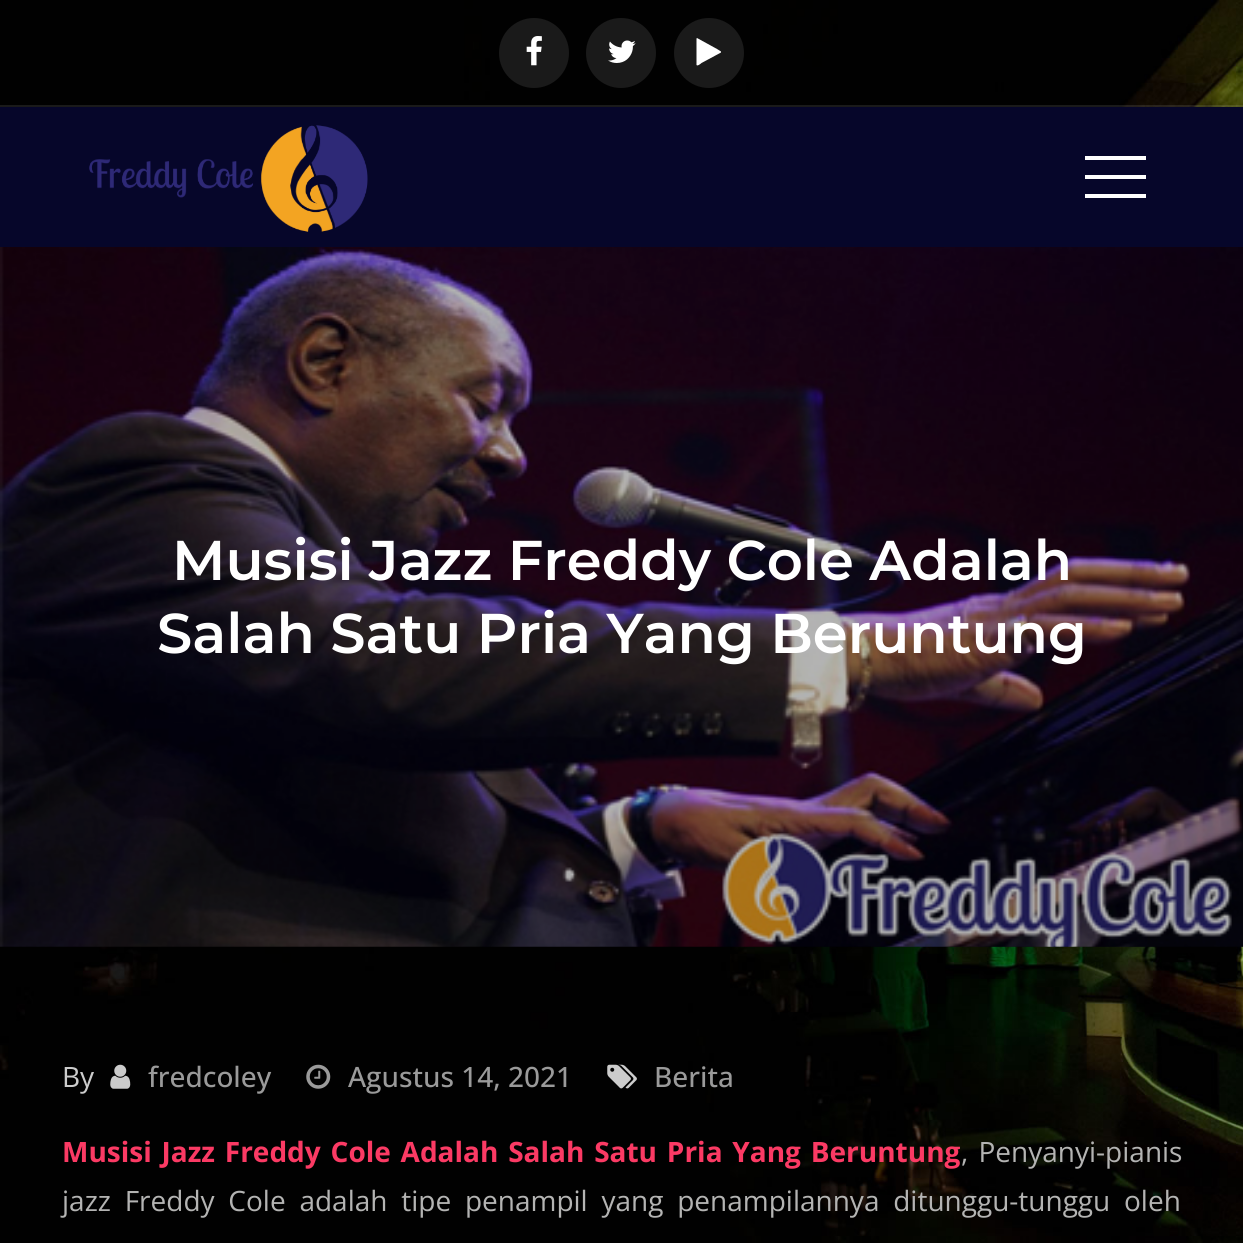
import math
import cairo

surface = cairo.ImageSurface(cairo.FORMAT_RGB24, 1243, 1243)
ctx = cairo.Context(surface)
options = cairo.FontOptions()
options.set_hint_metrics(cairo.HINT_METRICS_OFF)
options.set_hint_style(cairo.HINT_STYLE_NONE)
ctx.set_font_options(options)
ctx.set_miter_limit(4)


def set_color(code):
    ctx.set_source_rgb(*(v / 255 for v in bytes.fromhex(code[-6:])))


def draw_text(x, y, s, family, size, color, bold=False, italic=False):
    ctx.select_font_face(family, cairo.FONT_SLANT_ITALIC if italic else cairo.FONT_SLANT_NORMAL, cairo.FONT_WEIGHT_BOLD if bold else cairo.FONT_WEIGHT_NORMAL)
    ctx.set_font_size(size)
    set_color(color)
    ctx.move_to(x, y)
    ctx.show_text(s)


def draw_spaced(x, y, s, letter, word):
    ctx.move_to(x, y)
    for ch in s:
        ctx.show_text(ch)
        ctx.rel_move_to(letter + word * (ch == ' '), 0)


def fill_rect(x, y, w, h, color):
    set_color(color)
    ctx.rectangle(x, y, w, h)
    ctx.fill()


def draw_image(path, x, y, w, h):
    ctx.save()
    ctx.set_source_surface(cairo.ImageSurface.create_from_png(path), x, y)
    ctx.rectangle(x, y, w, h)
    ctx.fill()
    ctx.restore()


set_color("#ffffff")
ctx.paint()
draw_image("assets/img1.png", 0, 0, 1243, 1243)
ctx.set_source_rgba(1, 1, 1, 0.1)
ctx.rectangle(0, 105, 1243, 2)
ctx.fill()
set_color("#1a1a1a")
ctx.arc(534, 53, 35, 0, 2 * math.pi)
ctx.fill()
draw_image("assets/img2.png", 526, 36, 16, 30)
ctx.arc(621, 53, 35, 0, 2 * math.pi)
ctx.fill()
draw_image("assets/img3.png", 608, 40, 28, 23)
ctx.arc(709, 53, 35, 0, 2 * math.pi)
ctx.fill()
set_color("#ffffff")
ctx.new_path()
ctx.move_to(721, 52.5)
ctx.line_to(701.5, 63)
ctx.curve_to(701, 63.5, 697.5, 66.5, 696.5, 65)
ctx.line_to(696.5, 38.5)
ctx.line_to(697, 38)
ctx.line_to(717, 49)
ctx.line_to(721, 51.5)
ctx.close_path()
ctx.fill()
fill_rect(0, 107, 1243, 140, "#06062a")
draw_image("assets/img4.png", 89, 125, 279, 107)
fill_rect(1085, 156, 61, 4, "#ffffff")
fill_rect(1085, 175, 61, 4, "#ffffff")
fill_rect(1085, 194, 61, 4, "#ffffff")
draw_image("assets/img5.png", 0, 247, 1243, 700)
ctx.set_source_rgba(0, 0, 0, 0.3)
ctx.rectangle(0, 247, 1243, 700)
ctx.fill()
draw_text(172, 580, "Musisi Jazz Freddy Cole Adalah", "Montserrat SemiBold", 56, "#ffffff")
draw_text(157, 653, "Salah Satu Pria Yang Beruntung", "Montserrat SemiBold", 56, "#ffffff")
draw_text(62, 1087, "By", "Open Sans", 28, "#cccccc")
draw_image("assets/img6.png", 110, 1064, 21, 25)
draw_text(148, 1087, "fredcoley", "Open Sans Medium", 28, "#9a9a9a")
draw_image("assets/img7.png", 306, 1064, 25, 25)
draw_text(348, 1087, "Agustus 14, 2021", "Open Sans Medium", 28, "#9a9a9a")
draw_image("assets/img8.png", 607, 1064, 30, 25)
draw_text(654, 1087, "Berita", "Open Sans Medium", 28, "#9a9a9a")
ctx.select_font_face("Open Sans", cairo.FONT_SLANT_NORMAL, cairo.FONT_WEIGHT_BOLD)
set_color("#fb3a64")
draw_spaced(62, 1162, "Musisi Jazz Freddy Cole Adalah Salah Satu Pria Yang Beruntung", 0, 2.5)
ctx.select_font_face("Open Sans")
set_color("#b4b4b3")
draw_spaced(961, 1162, ", Penyanyi-pianis", 0, 3)
draw_spaced(62, 1211, "jazz Freddy Cole adalah tipe penampil yang penampilannya ditunggu-tunggu oleh", 0, 6.5)
surface.write_to_png("output.png")
